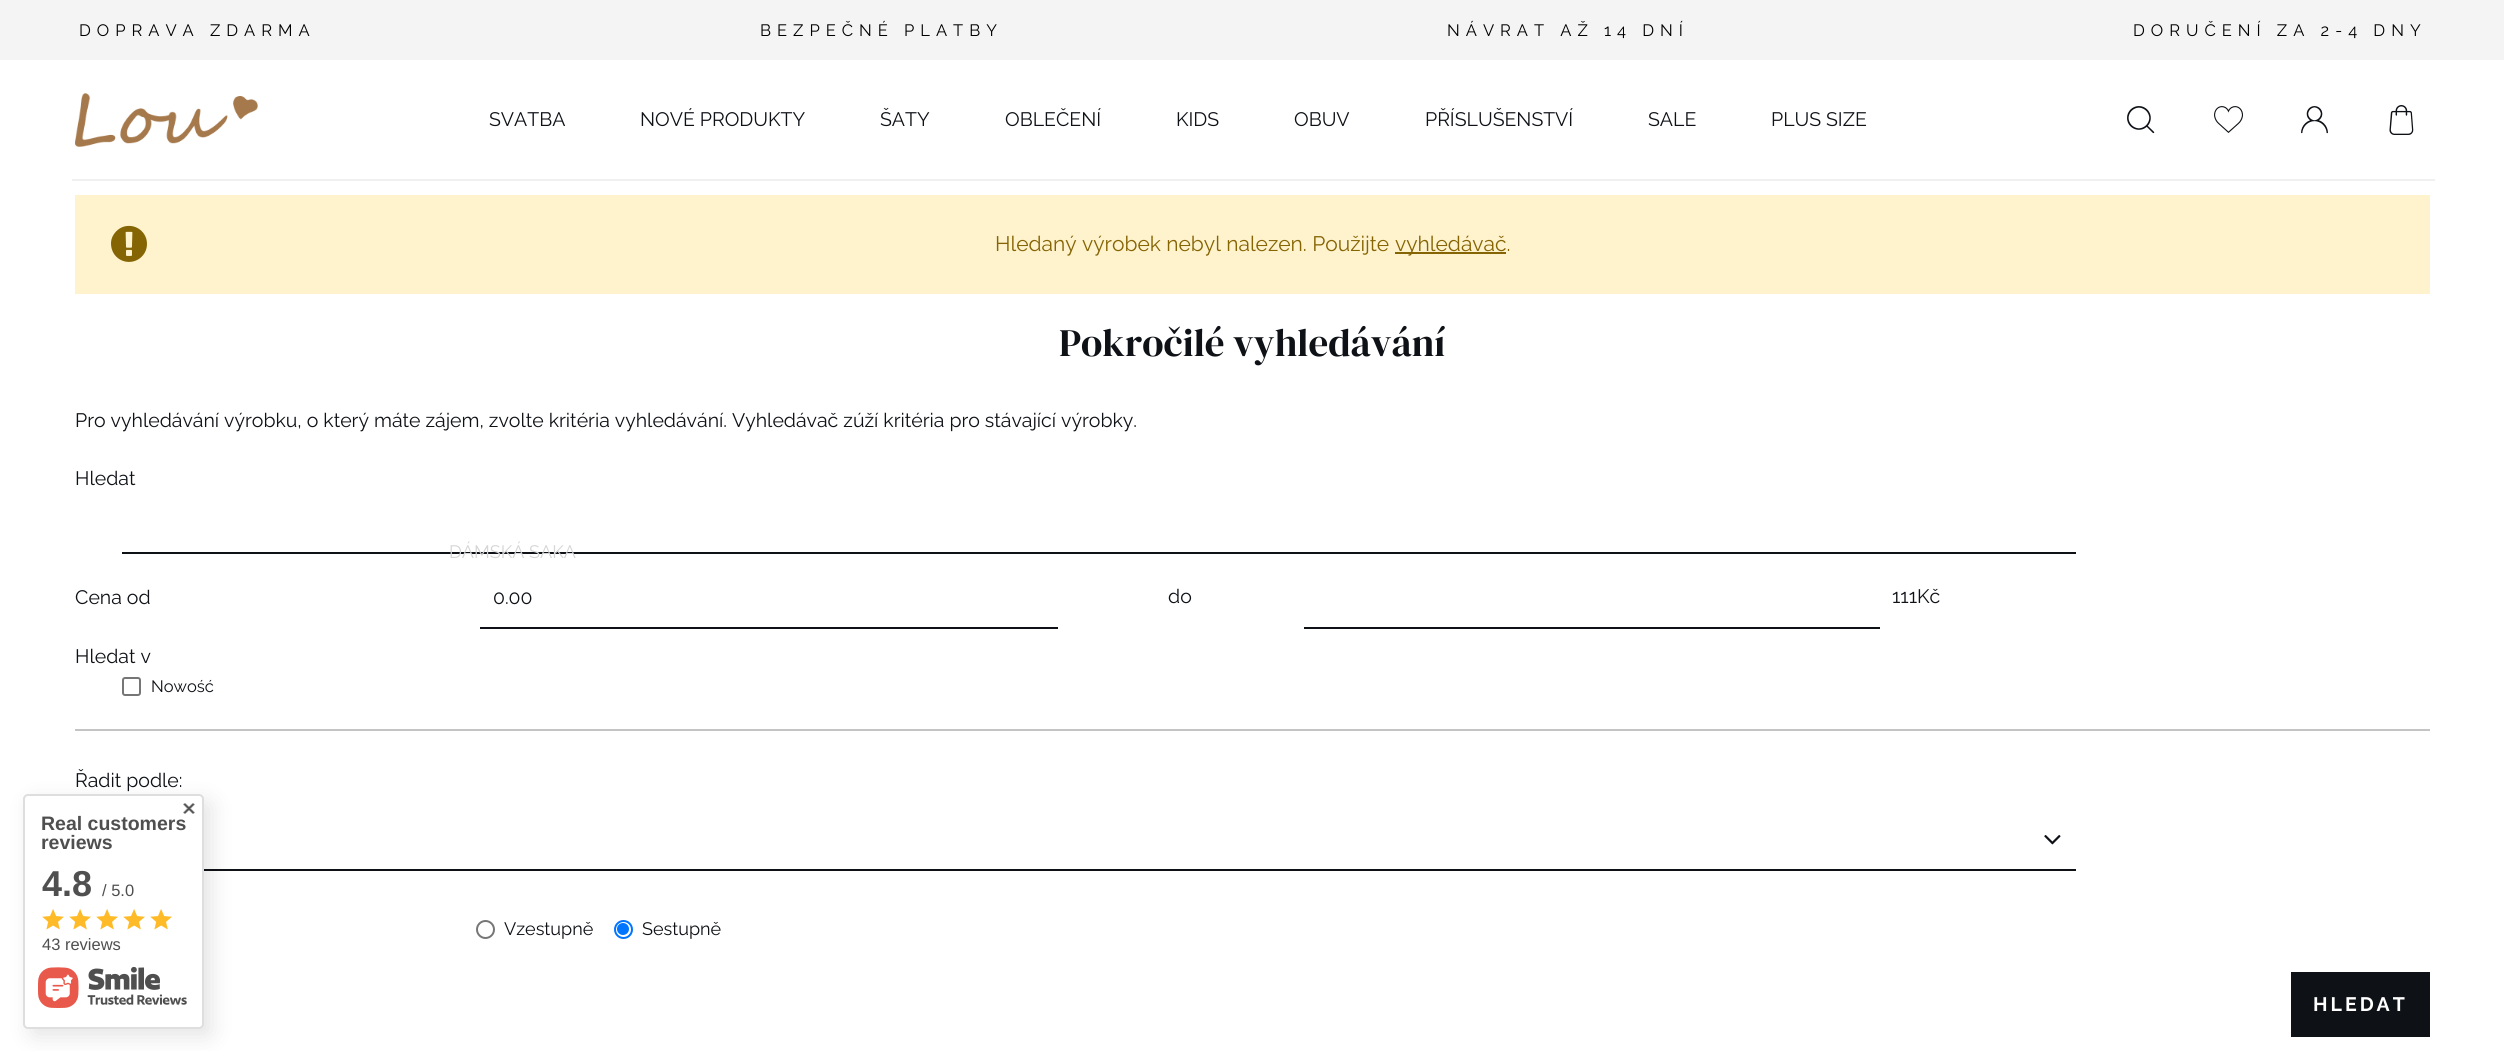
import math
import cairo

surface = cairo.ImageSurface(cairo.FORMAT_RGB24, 2504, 1051)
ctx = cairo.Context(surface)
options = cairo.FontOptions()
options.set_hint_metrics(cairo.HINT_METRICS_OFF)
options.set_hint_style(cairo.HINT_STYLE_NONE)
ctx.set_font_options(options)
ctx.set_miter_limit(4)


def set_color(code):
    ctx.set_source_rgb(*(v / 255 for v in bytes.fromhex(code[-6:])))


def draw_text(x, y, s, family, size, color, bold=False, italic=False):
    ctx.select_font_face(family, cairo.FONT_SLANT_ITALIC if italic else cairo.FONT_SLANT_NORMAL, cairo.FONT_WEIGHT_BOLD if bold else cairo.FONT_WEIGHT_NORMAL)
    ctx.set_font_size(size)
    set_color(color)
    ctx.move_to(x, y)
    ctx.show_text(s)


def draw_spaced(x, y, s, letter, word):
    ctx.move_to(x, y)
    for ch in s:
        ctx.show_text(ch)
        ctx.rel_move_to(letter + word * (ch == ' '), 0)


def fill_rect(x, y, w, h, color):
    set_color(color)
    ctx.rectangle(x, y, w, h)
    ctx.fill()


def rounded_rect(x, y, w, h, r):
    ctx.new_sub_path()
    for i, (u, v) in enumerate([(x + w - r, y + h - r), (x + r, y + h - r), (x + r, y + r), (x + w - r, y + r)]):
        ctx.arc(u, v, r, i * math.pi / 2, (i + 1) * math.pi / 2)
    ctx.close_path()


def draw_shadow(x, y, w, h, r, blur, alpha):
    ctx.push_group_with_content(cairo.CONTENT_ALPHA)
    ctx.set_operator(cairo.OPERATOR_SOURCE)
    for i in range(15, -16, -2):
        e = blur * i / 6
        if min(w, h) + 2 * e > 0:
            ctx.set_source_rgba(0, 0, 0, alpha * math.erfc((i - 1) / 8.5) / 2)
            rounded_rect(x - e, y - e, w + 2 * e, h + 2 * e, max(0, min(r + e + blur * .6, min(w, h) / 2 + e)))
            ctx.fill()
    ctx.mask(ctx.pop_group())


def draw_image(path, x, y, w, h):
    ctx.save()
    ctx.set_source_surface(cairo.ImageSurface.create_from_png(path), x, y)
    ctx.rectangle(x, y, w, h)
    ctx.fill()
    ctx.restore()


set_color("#ffffff")
ctx.paint()
fill_rect(0, 0, 2504, 60, "#f4f4f4")
ctx.select_font_face("Raleway")
ctx.set_font_size(16.5)
set_color("#000000")
draw_spaced(79, 36, "DOPRAVA ZDARMA", 6, 0)
draw_spaced(760, 36, "BEZPEČNÉ PLATBY", 6, 0)
draw_spaced(1447, 36, "NÁVRAT AŽ 14 DNÍ", 6, 0)
draw_spaced(2133, 36, "DORUČENÍ ZA 2-4 DNY", 6, 0)
draw_image("assets/img1.png", 75, 93, 183, 54)
draw_text(880, 126, "ŠATY", "Raleway", 19.5, "#0e1116")
draw_text(1425, 126, "PŘÍSLUŠENSTVÍ", "Raleway", 19.5, "#0e1116")
draw_text(1005, 126, "OBLEČENÍ", "Raleway", 19.5, "#0e1116")
fill_rect(122, 552, 1954, 2, "#0e1116")
draw_text(449, 558, "DÁMSKÁ SAKA", "Raleway", 18, "#d5d5d6")
draw_text(489, 126, "SVATBA", "Raleway", 19.5, "#0e1116")
draw_text(640, 126, "NOVÉ PRODUKTY", "Raleway", 19.5, "#0e1116")
draw_text(1176, 126, "KIDS", "Raleway", 19.5, "#0e1116")
draw_text(1294, 126, "OBUV", "Raleway", 19.5, "#0e1116")
draw_text(1648, 126, "SALE", "Raleway", 19.5, "#0e1116")
draw_text(1771, 126, "PLUS SIZE", "Raleway", 19.5, "#0e1116")
draw_image("assets/img2.png", 2127, 106, 28, 28)
draw_image("assets/img3.png", 2214, 106, 29, 27)
draw_image("assets/img4.png", 2301, 106, 27, 28)
draw_image("assets/img5.png", 2389, 105, 25, 30)
fill_rect(72, 179, 2363, 2, "#f0f0f0")
fill_rect(75, 195, 2355, 99, "#fff3cd")
draw_image("assets/img6.png", 111, 225, 36, 37)
draw_text(995, 251, "Hledaný výrobek nebyl nalezen. Použijte", "Raleway", 21, "#856404")
fill_rect(1395, 252, 111, 2, "#856404")
draw_text(1395, 251, "vyhledávač.", "Raleway", 21, "#856404")
draw_text(1059, 356, "Pokročilé vyhledávání", "DM Serif Display", 39, "#0e1116")
draw_text(75, 427, "Pro vyhledávání výrobku, o který máte zájem, zvolte kritéria vyhledávání. Vyhledávač zúží kritéria pro stávající výrobky.", "Raleway", 19.5, "#0e1116")
fill_rect(75, 729, 2355, 2, "#c4c4c4")
draw_text(75, 485, "Hledat", "Raleway", 19.5, "#0e1116")
draw_text(75, 604, "Cena od", "Raleway", 19.5, "#0e1116")
fill_rect(480, 627, 578, 2, "#0e1116")
draw_text(493, 604, "0.00", "Raleway", 19.5, "#0e1116")
draw_text(1168, 603, "do", "Raleway", 19.5, "#0e1116")
draw_text(1892, 603, "111Kč", "Raleway", 19.5, "#0e1116")
fill_rect(1304, 627, 576, 2, "#0e1116")
draw_text(75, 663, "Hledat v", "Raleway", 19.5, "#0e1116")
rounded_rect(123, 678, 17, 17, 2)
set_color("#767676")
ctx.stroke()
draw_text(151, 692, "Nowość", "Raleway", 16.5, "#0e1116")
draw_text(75, 787, "Řadit podle:", "Raleway", 19.5, "#0e1116")
fill_rect(204, 869, 1872, 2, "#0e1116")
draw_image("assets/img7.png", 2044, 835, 17, 10)
ctx.arc(485.5, 929.5, 8.5, 0, 2 * math.pi)
set_color("#767676")
ctx.stroke()
draw_text(504, 935, "Vzestupně", "Raleway", 18, "#0e1116")
ctx.new_path()
ctx.arc(623.5, 929.5, 8.5, 0, 2 * math.pi)
set_color("#0075ff")
ctx.stroke()
ctx.arc(623, 929, 6, 0, 2 * math.pi)
ctx.fill()
draw_text(642, 935, "Sestupně", "Raleway", 18, "#0e1116")
fill_rect(2291, 972, 139, 65, "#0e1116")
ctx.select_font_face("Raleway", cairo.FONT_SLANT_NORMAL, cairo.FONT_WEIGHT_BOLD)
ctx.set_font_size(19.5)
set_color("#ffffff")
draw_spaced(2313, 1011, "HLEDAT", 3, 0)
set_color("#000000")
draw_shadow(30, 801, 182, 236, 5, 11, 0.1)
set_color("#ffffff")
rounded_rect(24, 795, 179, 233, 4)
ctx.fill_preserve()
set_color("#dedede")
ctx.stroke()
draw_image("assets/img8.png", 183, 803, 12, 11)
draw_text(41, 830, "Real customers", "Liberation Sans", 19.5, "#4f4f4f", bold=True)
draw_text(41, 849, "reviews", "Liberation Sans", 19.5, "#4f4f4f", bold=True)
draw_text(42, 896, "4.8", "Liberation Sans", 36, "#4f4f4f", bold=True)
draw_text(102, 896, "/ 5.0", "Liberation Sans", 16.5, "#4f4f4f")
draw_image("assets/img9.png", 42, 909, 22, 21)
draw_image("assets/img9.png", 69, 909, 22, 21)
draw_image("assets/img9.png", 96, 909, 22, 21)
draw_image("assets/img9.png", 123, 909, 22, 21)
draw_image("assets/img9.png", 150, 909, 22, 21)
draw_text(42, 950, "43 reviews", "Liberation Sans", 16.5, "#4f4f4f")
draw_image("assets/img10.png", 38, 966, 149, 42)
surface.write_to_png("output.png")
